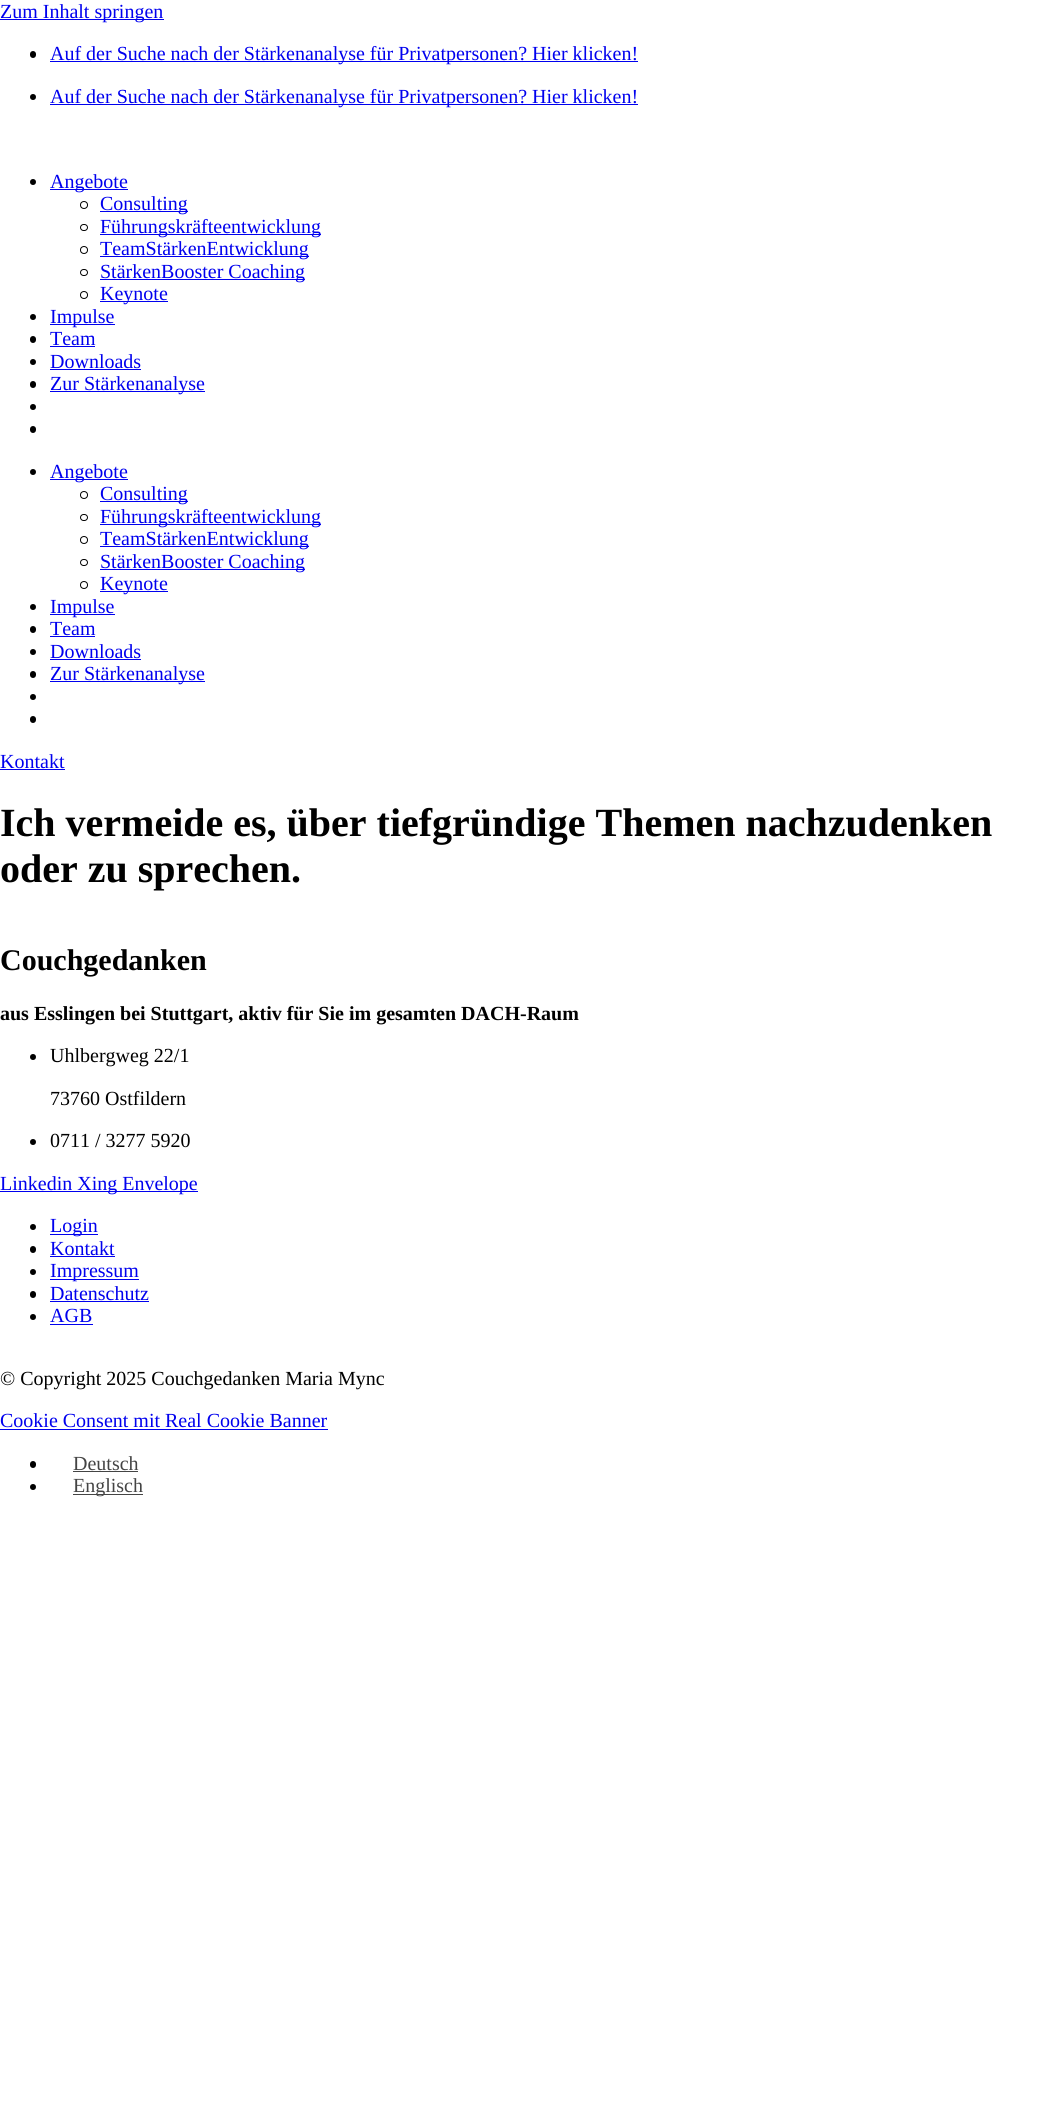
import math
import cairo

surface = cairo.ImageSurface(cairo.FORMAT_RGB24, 1037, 2118)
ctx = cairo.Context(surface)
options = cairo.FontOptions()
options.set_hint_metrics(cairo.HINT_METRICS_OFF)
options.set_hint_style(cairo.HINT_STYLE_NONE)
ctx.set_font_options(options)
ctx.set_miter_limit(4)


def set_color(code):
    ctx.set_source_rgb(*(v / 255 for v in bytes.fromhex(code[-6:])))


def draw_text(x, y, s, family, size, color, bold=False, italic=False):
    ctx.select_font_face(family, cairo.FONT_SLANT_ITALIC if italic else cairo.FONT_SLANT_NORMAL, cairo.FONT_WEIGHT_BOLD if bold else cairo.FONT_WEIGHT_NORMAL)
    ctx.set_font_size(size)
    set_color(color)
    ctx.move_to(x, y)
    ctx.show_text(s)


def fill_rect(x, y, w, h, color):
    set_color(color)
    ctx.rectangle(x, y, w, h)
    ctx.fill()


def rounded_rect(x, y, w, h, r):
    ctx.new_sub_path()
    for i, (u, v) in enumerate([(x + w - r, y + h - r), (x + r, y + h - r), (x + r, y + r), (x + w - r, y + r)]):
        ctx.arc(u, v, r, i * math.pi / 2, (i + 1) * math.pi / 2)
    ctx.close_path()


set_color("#ffffff")
ctx.paint()
fill_rect(0, 19, 164, 1, "#0000ee")
draw_text(0, 18, "Zum Inhalt springen", "Liberation Serif", 20, "#0000ee")
set_color("#000000")
rounded_rect(30, 51, 6, 7, 3)
ctx.fill()
fill_rect(50, 61, 588, 1, "#0000ee")
draw_text(50, 60, "Auf der Suche nach der Stärkenanalyse für Privatpersonen? Hier klicken!", "Liberation Serif", 20, "#0000ee")
set_color("#000000")
ctx.new_path()
ctx.arc(33, 97, 3, 0, 2 * math.pi)
ctx.fill()
fill_rect(50, 104, 588, 1, "#0000ee")
draw_text(50, 103, "Auf der Suche nach der Stärkenanalyse für Privatpersonen? Hier klicken!", "Liberation Serif", 20, "#0000ee")
set_color("#000000")
ctx.new_path()
ctx.arc(33, 182, 3, 0, 2 * math.pi)
ctx.fill()
fill_rect(50, 189, 78, 1, "#0000ee")
draw_text(50, 188, "Angebote", "Liberation Serif", 20, "#0000ee")
ctx.new_path()
ctx.arc(84, 205, 3.5, 0, 2 * math.pi)
set_color("#000000")
ctx.set_line_width(1)
ctx.stroke()
fill_rect(100, 211, 88, 1, "#0000ee")
draw_text(100, 210, "Consulting", "Liberation Serif", 20, "#0000ee")
rounded_rect(80.5, 224.5, 7, 6, 3)
set_color("#000000")
ctx.stroke()
fill_rect(100, 234, 221, 1, "#0000ee")
draw_text(100, 233, "Führungskräfteentwicklung", "Liberation Serif", 20, "#0000ee")
ctx.new_path()
ctx.arc(84, 250, 3.5, 0, 2 * math.pi)
set_color("#000000")
ctx.stroke()
fill_rect(100, 256, 209, 1, "#0000ee")
draw_text(100, 255, "TeamStärkenEntwicklung", "Liberation Serif", 20, "#0000ee")
rounded_rect(80.5, 269.5, 7, 6, 3)
set_color("#000000")
ctx.stroke()
fill_rect(100, 279, 205, 1, "#0000ee")
draw_text(100, 278, "StärkenBooster Coaching", "Liberation Serif", 20, "#0000ee")
ctx.new_path()
ctx.arc(84, 295, 3.5, 0, 2 * math.pi)
set_color("#000000")
ctx.stroke()
fill_rect(100, 301, 68, 1, "#0000ee")
draw_text(100, 300, "Keynote", "Liberation Serif", 20, "#0000ee")
set_color("#000000")
ctx.new_path()
ctx.arc(33, 317, 3, 0, 2 * math.pi)
ctx.fill()
fill_rect(50, 324, 65, 1, "#0000ee")
draw_text(50, 323, "Impulse", "Liberation Serif", 20, "#0000ee")
set_color("#000000")
rounded_rect(30, 336, 6, 7, 3)
ctx.fill()
draw_text(50, 345, "Team", "Liberation Serif", 20, "#0000ee")
fill_rect(50, 346, 45, 1, "#0000ee")
set_color("#000000")
ctx.new_path()
ctx.arc(33, 362, 3, 0, 2 * math.pi)
ctx.fill()
draw_text(50, 368, "Downloads", "Liberation Serif", 20, "#0000ee")
fill_rect(50, 369, 91, 1, "#0000ee")
set_color("#000000")
rounded_rect(30, 381, 6, 7, 3)
ctx.fill()
fill_rect(50, 391, 155, 1, "#0000ee")
draw_text(50, 390, "Zur Stärkenanalyse", "Liberation Serif", 20, "#0000ee")
set_color("#000000")
ctx.new_path()
ctx.arc(33, 407, 3, 0, 2 * math.pi)
ctx.fill()
rounded_rect(30, 426, 6, 7, 3)
ctx.fill()
ctx.arc(33, 472, 3, 0, 2 * math.pi)
ctx.fill()
fill_rect(50, 479, 78, 1, "#0000ee")
draw_text(50, 478, "Angebote", "Liberation Serif", 20, "#0000ee")
ctx.new_path()
ctx.arc(84, 495, 3.5, 0, 2 * math.pi)
set_color("#000000")
ctx.stroke()
fill_rect(100, 501, 88, 1, "#0000ee")
draw_text(100, 500, "Consulting", "Liberation Serif", 20, "#0000ee")
rounded_rect(80.5, 514.5, 7, 6, 3)
set_color("#000000")
ctx.stroke()
fill_rect(100, 524, 221, 1, "#0000ee")
draw_text(100, 523, "Führungskräfteentwicklung", "Liberation Serif", 20, "#0000ee")
ctx.new_path()
ctx.arc(84, 540, 3.5, 0, 2 * math.pi)
set_color("#000000")
ctx.stroke()
fill_rect(100, 546, 209, 1, "#0000ee")
draw_text(100, 545, "TeamStärkenEntwicklung", "Liberation Serif", 20, "#0000ee")
rounded_rect(80.5, 559.5, 7, 6, 3)
set_color("#000000")
ctx.stroke()
fill_rect(100, 569, 205, 1, "#0000ee")
draw_text(100, 568, "StärkenBooster Coaching", "Liberation Serif", 20, "#0000ee")
ctx.new_path()
ctx.arc(84, 585, 3.5, 0, 2 * math.pi)
set_color("#000000")
ctx.stroke()
fill_rect(100, 591, 68, 1, "#0000ee")
draw_text(100, 590, "Keynote", "Liberation Serif", 20, "#0000ee")
set_color("#000000")
ctx.new_path()
ctx.arc(33, 607, 3, 0, 2 * math.pi)
ctx.fill()
fill_rect(50, 614, 65, 1, "#0000ee")
draw_text(50, 613, "Impulse", "Liberation Serif", 20, "#0000ee")
set_color("#000000")
rounded_rect(30, 626, 6, 7, 3)
ctx.fill()
draw_text(50, 635, "Team", "Liberation Serif", 20, "#0000ee")
fill_rect(50, 636, 45, 1, "#0000ee")
set_color("#000000")
ctx.new_path()
ctx.arc(33, 652, 3, 0, 2 * math.pi)
ctx.fill()
draw_text(50, 658, "Downloads", "Liberation Serif", 20, "#0000ee")
fill_rect(50, 659, 91, 1, "#0000ee")
set_color("#000000")
rounded_rect(30, 671, 6, 7, 3)
ctx.fill()
fill_rect(50, 681, 155, 1, "#0000ee")
draw_text(50, 680, "Zur Stärkenanalyse", "Liberation Serif", 20, "#0000ee")
set_color("#000000")
ctx.new_path()
ctx.arc(33, 697, 3, 0, 2 * math.pi)
ctx.fill()
rounded_rect(30, 716, 6, 7, 3)
ctx.fill()
draw_text(0, 768, "Kontakt", "Liberation Serif", 20, "#0000ee")
fill_rect(0, 769, 65, 1, "#0000ee")
draw_text(0, 836, "Ich vermeide es, über tiefgründige Themen nachzudenken", "Liberation Serif", 40, "#000000", bold=True)
draw_text(0, 882, "oder zu sprechen.", "Liberation Serif", 40, "#000000", bold=True)
draw_text(0, 970, "Couchgedanken", "Liberation Serif", 30, "#000000", bold=True)
draw_text(0, 1020, "aus Esslingen bei Stuttgart, aktiv für Sie im gesamten DACH-Raum", "Liberation Serif", 20, "#000000", bold=True)
ctx.new_path()
ctx.arc(33, 1057, 3, 0, 2 * math.pi)
ctx.fill()
draw_text(50, 1062, "Uhlbergweg 22/1", "Liberation Serif", 20, "#000000")
draw_text(50, 1105, "73760 Ostfildern", "Liberation Serif", 20, "#000000")
ctx.new_path()
ctx.arc(33, 1142, 3, 0, 2 * math.pi)
ctx.fill()
draw_text(50, 1147, "0711 / 3277 5920", "Liberation Serif", 20, "#000000")
fill_rect(0, 1191, 198, 1, "#0000ee")
draw_text(0, 1190, "Linkedin Xing Envelope", "Liberation Serif", 20, "#0000ee")
set_color("#000000")
ctx.new_path()
ctx.arc(33, 1227, 3, 0, 2 * math.pi)
ctx.fill()
fill_rect(50, 1234, 48, 1, "#0000ee")
draw_text(50, 1232, "Login", "Liberation Serif", 20, "#0000ee")
set_color("#000000")
rounded_rect(30, 1246, 6, 7, 3)
ctx.fill()
draw_text(50, 1255, "Kontakt", "Liberation Serif", 20, "#0000ee")
fill_rect(50, 1256, 65, 1, "#0000ee")
set_color("#000000")
ctx.new_path()
ctx.arc(33, 1272, 3, 0, 2 * math.pi)
ctx.fill()
fill_rect(50, 1279, 89, 1, "#0000ee")
draw_text(50, 1277, "Impressum", "Liberation Serif", 20, "#0000ee")
set_color("#000000")
rounded_rect(30, 1291, 6, 7, 3)
ctx.fill()
draw_text(50, 1300, "Datenschutz", "Liberation Serif", 20, "#0000ee")
fill_rect(50, 1301, 99, 1, "#0000ee")
set_color("#000000")
ctx.new_path()
ctx.arc(33, 1317, 3, 0, 2 * math.pi)
ctx.fill()
draw_text(50, 1322, "AGB", "Liberation Serif", 20, "#0000ee")
fill_rect(50, 1324, 43, 1, "#0000ee")
draw_text(0, 1385, "© Copyright 2025 Couchgedanken Maria Mync", "Liberation Serif", 20, "#000000")
draw_text(0, 1427, "Cookie Consent mit Real Cookie Banner", "Liberation Serif", 20, "#0000ee")
fill_rect(0, 1429, 328, 1, "#0000ee")
set_color("#000000")
rounded_rect(30, 1461, 6, 7, 3)
ctx.fill()
draw_text(73, 1470, "Deutsch", "Liberation Serif", 20, "#444444")
fill_rect(73, 1471, 65, 1, "#444444")
set_color("#000000")
ctx.new_path()
ctx.arc(33, 1487, 3, 0, 2 * math.pi)
ctx.fill()
fill_rect(73, 1494, 70, 1, "#444444")
draw_text(73, 1492, "Englisch", "Liberation Serif", 20, "#444444")
surface.write_to_png("output.png")
